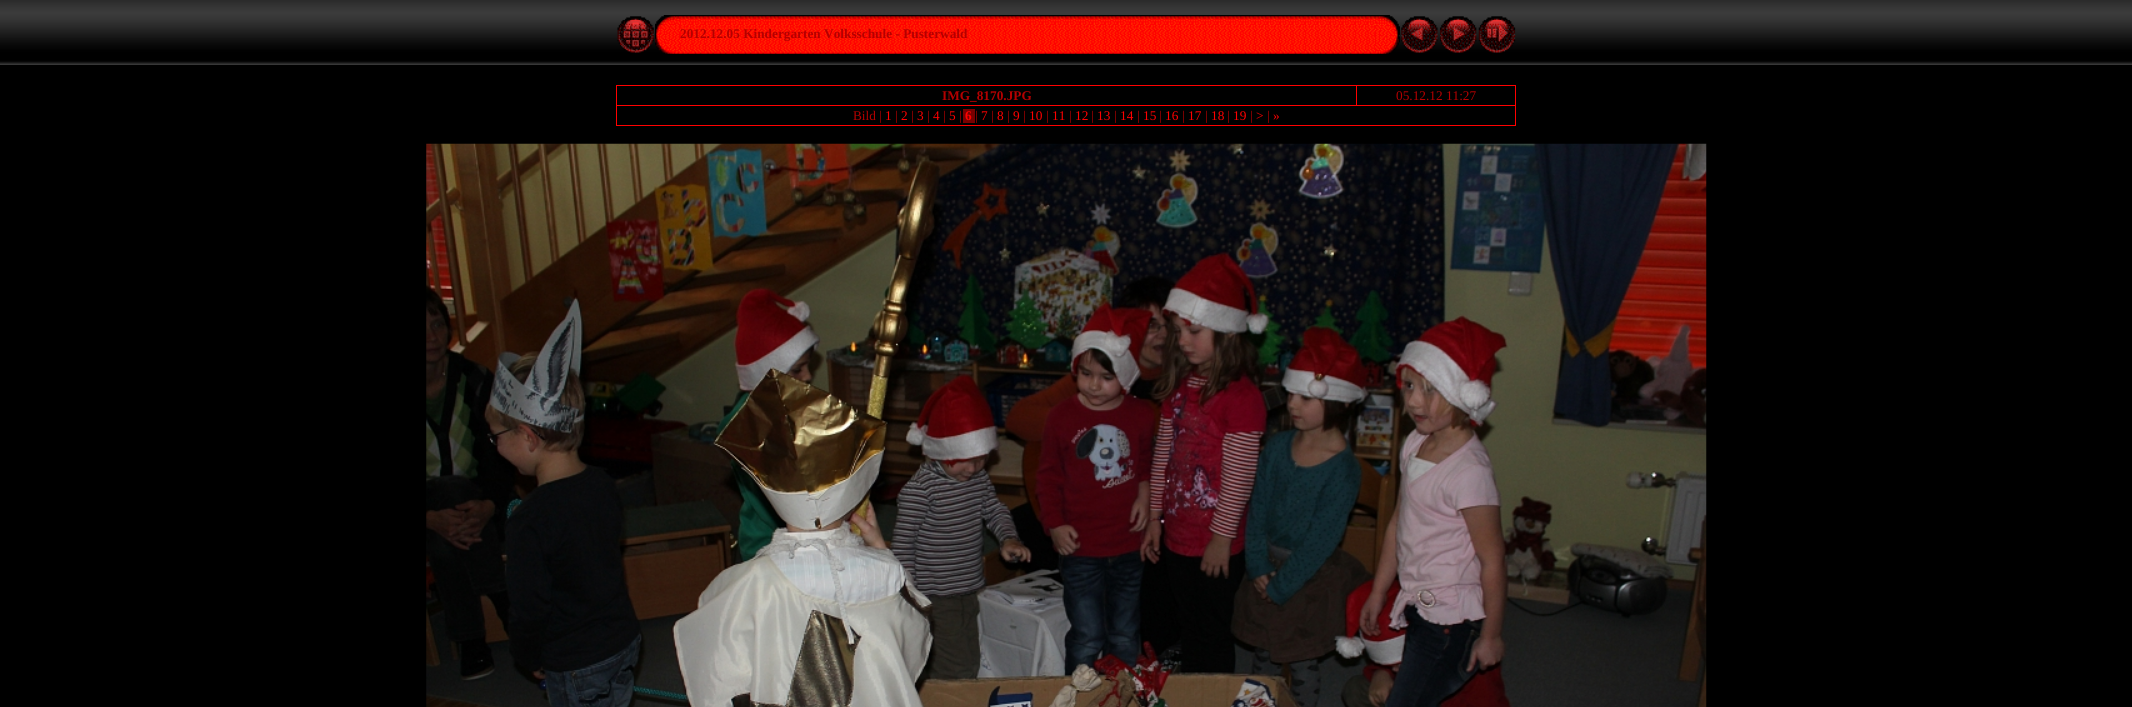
import math
import cairo

surface = cairo.ImageSurface(cairo.FORMAT_RGB24, 2132, 707)
ctx = cairo.Context(surface)
options = cairo.FontOptions()
options.set_hint_metrics(cairo.HINT_METRICS_OFF)
options.set_hint_style(cairo.HINT_STYLE_NONE)
ctx.set_font_options(options)
ctx.set_miter_limit(4)


def set_color(code):
    ctx.set_source_rgb(*(v / 255 for v in bytes.fromhex(code[-6:])))


def draw_text(x, y, s, family, size, color, bold=False, italic=False):
    ctx.select_font_face(family, cairo.FONT_SLANT_ITALIC if italic else cairo.FONT_SLANT_NORMAL, cairo.FONT_WEIGHT_BOLD if bold else cairo.FONT_WEIGHT_NORMAL)
    ctx.set_font_size(size)
    set_color(color)
    ctx.move_to(x, y)
    ctx.show_text(s)


def fill_rect(x, y, w, h, color):
    set_color(color)
    ctx.rectangle(x, y, w, h)
    ctx.fill()


def draw_image(path, x, y, w, h):
    ctx.save()
    ctx.set_source_surface(cairo.ImageSurface.create_from_png(path), x, y)
    ctx.rectangle(x, y, w, h)
    ctx.fill()
    ctx.restore()


set_color("#000000")
ctx.paint()
draw_image("assets/img1.png", 0, 0, 2132, 65)
draw_image("assets/img2.png", 617, 16, 37, 37)
draw_image("assets/img3.png", 655, 15, 25, 39)
draw_image("assets/img4.png", 680, 15, 695, 39)
draw_text(680, 38, "2012.12.05 Kindergarten Volksschule - Pusterwald", "Liberation Serif", 13.3, "#b40000", bold=True)
draw_image("assets/img5.png", 1375, 15, 25, 39)
draw_image("assets/img6.png", 1401, 16, 37, 37)
draw_image("assets/img7.png", 1440, 16, 37, 37)
draw_image("assets/img8.png", 1478, 16, 38, 37)
fill_rect(616, 85, 900, 1, "#ff0000")
fill_rect(1515, 85, 1, 41, "#ff0000")
fill_rect(616, 125, 900, 1, "#ff0000")
fill_rect(616, 85, 1, 41, "#ff0000")
draw_text(942, 100, "IMG_8170.JPG", "Liberation Serif", 13.3, "#b40000", bold=True)
fill_rect(616, 105, 900, 1, "#ff0000")
fill_rect(1356, 85, 1, 21, "#ff0000")
draw_text(1396, 100, "05.12.12 11:27", "Liberation Serif", 13.3, "#b40000")
draw_text(853, 120, "Bild |", "Liberation Serif", 13.3, "#b40000")
draw_text(885, 120, "1", "Liberation Serif", 13.3, "#ff0000")
draw_text(895, 120, "|", "Liberation Serif", 13.3, "#b40000")
draw_text(901, 120, "2", "Liberation Serif", 13.3, "#ff0000")
draw_text(911, 120, "|", "Liberation Serif", 13.3, "#b40000")
draw_text(917, 120, "3", "Liberation Serif", 13.3, "#ff0000")
draw_text(927, 120, "|", "Liberation Serif", 13.3, "#b40000")
draw_text(933, 120, "4", "Liberation Serif", 13.3, "#ff0000")
draw_text(943, 120, "|", "Liberation Serif", 13.3, "#b40000")
draw_text(949, 120, "5", "Liberation Serif", 13.3, "#ff0000")
draw_text(959, 120, "|", "Liberation Serif", 13.3, "#b40000")
fill_rect(963, 109, 12, 14, "#780000")
draw_text(965, 120, "6", "Liberation Serif", 13.3, "#ff0000", bold=True)
draw_text(975, 120, "|", "Liberation Serif", 13.3, "#b40000")
draw_text(981, 120, "7", "Liberation Serif", 13.3, "#ff0000")
draw_text(991, 120, "|", "Liberation Serif", 13.3, "#b40000")
draw_text(997, 120, "8", "Liberation Serif", 13.3, "#ff0000")
draw_text(1007, 120, "|", "Liberation Serif", 13.3, "#b40000")
draw_text(1013, 120, "9", "Liberation Serif", 13.3, "#ff0000")
draw_text(1023, 120, "|", "Liberation Serif", 13.3, "#b40000")
draw_text(1029, 120, "10", "Liberation Serif", 13.3, "#ff0000")
draw_text(1046, 120, "|", "Liberation Serif", 13.3, "#b40000")
draw_text(1052, 120, "11", "Liberation Serif", 13.3, "#ff0000")
draw_text(1069, 120, "|", "Liberation Serif", 13.3, "#b40000")
draw_text(1075, 120, "12", "Liberation Serif", 13.3, "#ff0000")
draw_text(1091, 120, "|", "Liberation Serif", 13.3, "#b40000")
draw_text(1097, 120, "13", "Liberation Serif", 13.3, "#ff0000")
draw_text(1114, 120, "|", "Liberation Serif", 13.3, "#b40000")
draw_text(1120, 120, "14", "Liberation Serif", 13.3, "#ff0000")
draw_text(1137, 120, "|", "Liberation Serif", 13.3, "#b40000")
draw_text(1143, 120, "15", "Liberation Serif", 13.3, "#ff0000")
draw_text(1159, 120, "|", "Liberation Serif", 13.3, "#b40000")
draw_text(1165, 120, "16", "Liberation Serif", 13.3, "#ff0000")
draw_text(1182, 120, "|", "Liberation Serif", 13.3, "#b40000")
draw_text(1188, 120, "17", "Liberation Serif", 13.3, "#ff0000")
draw_text(1205, 120, "|", "Liberation Serif", 13.3, "#b40000")
draw_text(1211, 120, "18", "Liberation Serif", 13.3, "#ff0000")
draw_text(1227, 120, "|", "Liberation Serif", 13.3, "#b40000")
draw_text(1233, 120, "19", "Liberation Serif", 13.3, "#ff0000")
draw_text(1250, 120, "|", "Liberation Serif", 13.3, "#b40000")
draw_text(1256, 120, ">", "Liberation Serif", 13.3, "#ff0000")
draw_text(1267, 120, "|", "Liberation Serif", 13.3, "#b40000")
draw_text(1273, 120, "»", "Liberation Serif", 13.3, "#ff0000")
draw_image("assets/img9.png", 426, 143, 1281, 564)
surface.write_to_png("output.png")
